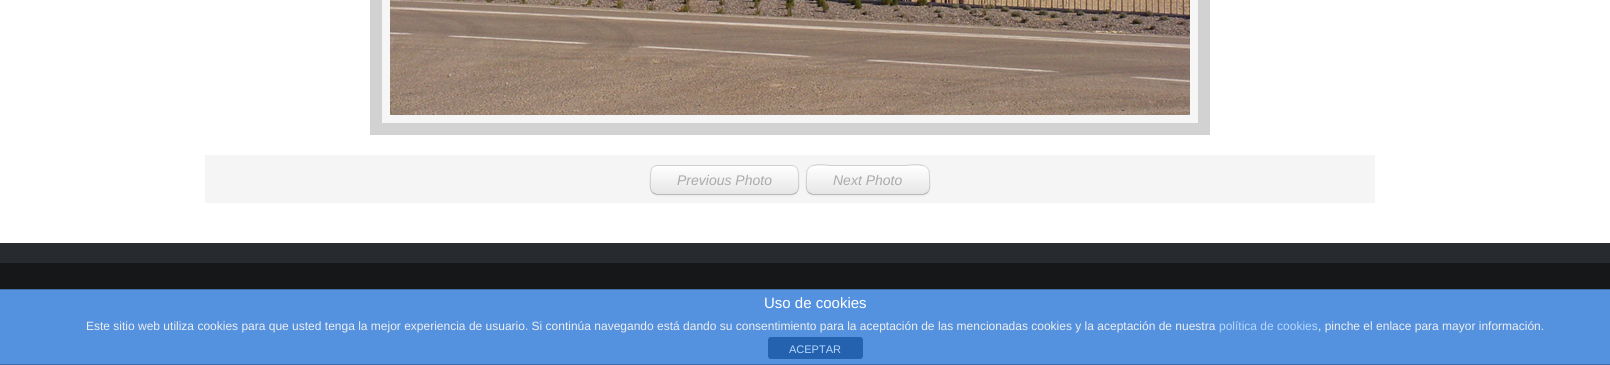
import math
import cairo

surface = cairo.ImageSurface(cairo.FORMAT_RGB24, 1610, 365)
ctx = cairo.Context(surface)
options = cairo.FontOptions()
options.set_hint_metrics(cairo.HINT_METRICS_OFF)
options.set_hint_style(cairo.HINT_STYLE_NONE)
ctx.set_font_options(options)
ctx.set_miter_limit(4)


def set_color(code):
    ctx.set_source_rgb(*(v / 255 for v in bytes.fromhex(code[-6:])))


def draw_text(x, y, s, family, size, color, bold=False, italic=False):
    ctx.select_font_face(family, cairo.FONT_SLANT_ITALIC if italic else cairo.FONT_SLANT_NORMAL, cairo.FONT_WEIGHT_BOLD if bold else cairo.FONT_WEIGHT_NORMAL)
    ctx.set_font_size(size)
    set_color(color)
    ctx.move_to(x, y)
    ctx.show_text(s)


def fill_rect(x, y, w, h, color):
    set_color(color)
    ctx.rectangle(x, y, w, h)
    ctx.fill()


def rounded_rect(x, y, w, h, r):
    ctx.new_sub_path()
    for i, (u, v) in enumerate([(x + w - r, y + h - r), (x + r, y + h - r), (x + r, y + r), (x + w - r, y + r)]):
        ctx.arc(u, v, r, i * math.pi / 2, (i + 1) * math.pi / 2)
    ctx.close_path()


def draw_shadow(x, y, w, h, r, blur, alpha):
    ctx.push_group_with_content(cairo.CONTENT_ALPHA)
    ctx.set_operator(cairo.OPERATOR_SOURCE)
    for i in range(15, -16, -2):
        e = blur * i / 6
        if min(w, h) + 2 * e > 0:
            ctx.set_source_rgba(0, 0, 0, alpha * math.erfc((i - 1) / 8.5) / 2)
            rounded_rect(x - e, y - e, w + 2 * e, h + 2 * e, max(0, min(r + e + blur * .6, min(w, h) / 2 + e)))
            ctx.fill()
    ctx.mask(ctx.pop_group())


def draw_image(path, x, y, w, h):
    ctx.save()
    ctx.set_source_surface(cairo.ImageSurface.create_from_png(path), x, y)
    ctx.rectangle(x, y, w, h)
    ctx.fill()
    ctx.restore()


set_color("#ffffff")
ctx.paint()
set_color("#f6f6f6")
ctx.rectangle(376, -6, 828, 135)
ctx.fill_preserve()
set_color("#d2d2d2")
ctx.set_line_width(12)
ctx.stroke()
draw_image("assets/img1.png", 390, 0, 800, 115)
fill_rect(205, 155, 1170, 48, "#f5f5f5")
set_color("#000000")
draw_shadow(650, 166, 149, 30, 8, 1, 0.05)
set_color("#f5f5f5")
rounded_rect(650, 165, 149, 30, 8)
ctx.fill()
ctx.save()
rounded_rect(650, 165, 149, 30, 8)
ctx.clip()
gradient = cairo.LinearGradient(725, 166, 725, 194)
gradient.add_color_stop_rgba(0, 1, 1, 1, 1)
gradient.add_color_stop_rgba(1, 0.902, 0.902, 0.902, 1)
ctx.set_source(gradient)
ctx.rectangle(650, 166, 149, 28)
ctx.fill()
ctx.restore()
ctx.new_path()
ctx.move_to(796.5, 192.5)
ctx.curve_to(795, 193.5, 793, 194.5, 791, 194.5)
ctx.line_to(658, 194.5)
ctx.curve_to(656, 194.5, 654, 193.5, 652.5, 192.5)
ctx.set_source_rgba(0, 0, 0, 0.25)
ctx.set_line_width(1)
ctx.stroke()
ctx.new_path()
ctx.move_to(652.5, 192.5)
ctx.curve_to(649, 188.5, 650.5, 182, 650.5, 177.5)
ctx.curve_to(650.5, 172, 650.5, 165.5, 658, 165.5)
ctx.line_to(791, 165.5)
ctx.curve_to(798.5, 165.5, 798.5, 172, 798.5, 177.5)
ctx.curve_to(798.5, 182, 800, 188.5, 796.5, 192.5)
ctx.set_source_rgba(0, 0, 0, 0.15)
ctx.stroke()
draw_text(677, 185, "Previous Photo", "Liberation Sans", 14, "#aaaaaa", italic=True)
set_color("#000000")
draw_shadow(806, 166, 124, 30, 8, 1, 0.05)
set_color("#f5f5f5")
rounded_rect(806, 165, 124, 30, 8)
ctx.fill()
ctx.save()
rounded_rect(806, 165, 124, 30, 8)
ctx.clip()
gradient = cairo.LinearGradient(868, 166, 868, 194)
gradient.add_color_stop_rgba(0, 1, 1, 1, 1)
gradient.add_color_stop_rgba(1, 0.902, 0.902, 0.902, 1)
ctx.set_source(gradient)
ctx.rectangle(806, 166, 124, 28)
ctx.fill()
ctx.restore()
ctx.new_path()
ctx.move_to(927.5, 192.5)
ctx.curve_to(926, 193.5, 924, 194.5, 922, 194.5)
ctx.line_to(814, 194.5)
ctx.curve_to(812, 194.5, 810, 193.5, 808.5, 192.5)
ctx.set_source_rgba(0, 0, 0, 0.25)
ctx.stroke()
ctx.new_path()
ctx.move_to(808.5, 192.5)
ctx.curve_to(805, 188.5, 806.5, 182, 806.5, 177.5)
ctx.line_to(807, 171)
ctx.curve_to(809.5, 161.5, 827.5, 165.5, 832, 165.5)
ctx.line_to(904, 165.5)
ctx.curve_to(908.5, 165.5, 926.5, 161.5, 929, 171)
ctx.line_to(929.5, 177.5)
ctx.curve_to(929.5, 182, 931, 188.5, 927.5, 192.5)
ctx.set_source_rgba(0, 0, 0, 0.15)
ctx.stroke()
draw_text(833, 185, "Next Photo", "Liberation Sans", 14, "#aaaaaa", italic=True)
fill_rect(0, 243, 1610, 20, "#272b30")
fill_rect(0, 263, 1610, 26, "#161718")
fill_rect(0, 290, 1610, 74, "#5492e0")
fill_rect(0, 289, 1610, 1, "#3f6da7")
fill_rect(0, 364, 1610, 1, "#3f6da7")
draw_text(764, 308, "Uso de cookies", "Liberation Sans", 15, "#ffffff")
draw_text(86, 330, "Este sitio web utiliza cookies para que usted tenga la mejor experiencia de usuario. Si continúa navegando está dando su consentimiento para la aceptación de las mencionadas cookies y la aceptación de nuestra", "Liberation Sans", 12, "#eeeeee")
draw_text(1219, 330, "política de cookies", "Liberation Sans", 12, "#b7d7ff")
draw_text(1318, 330, ", pinche el enlace para mayor información.", "Liberation Sans", 12, "#eeeeee")
set_color("#2462b0")
rounded_rect(768, 337, 95, 22, 3)
ctx.fill()
draw_text(789, 353, "ACEPTAR", "Liberation Sans", 11, "#b7d7ff")
surface.write_to_png("output.png")
